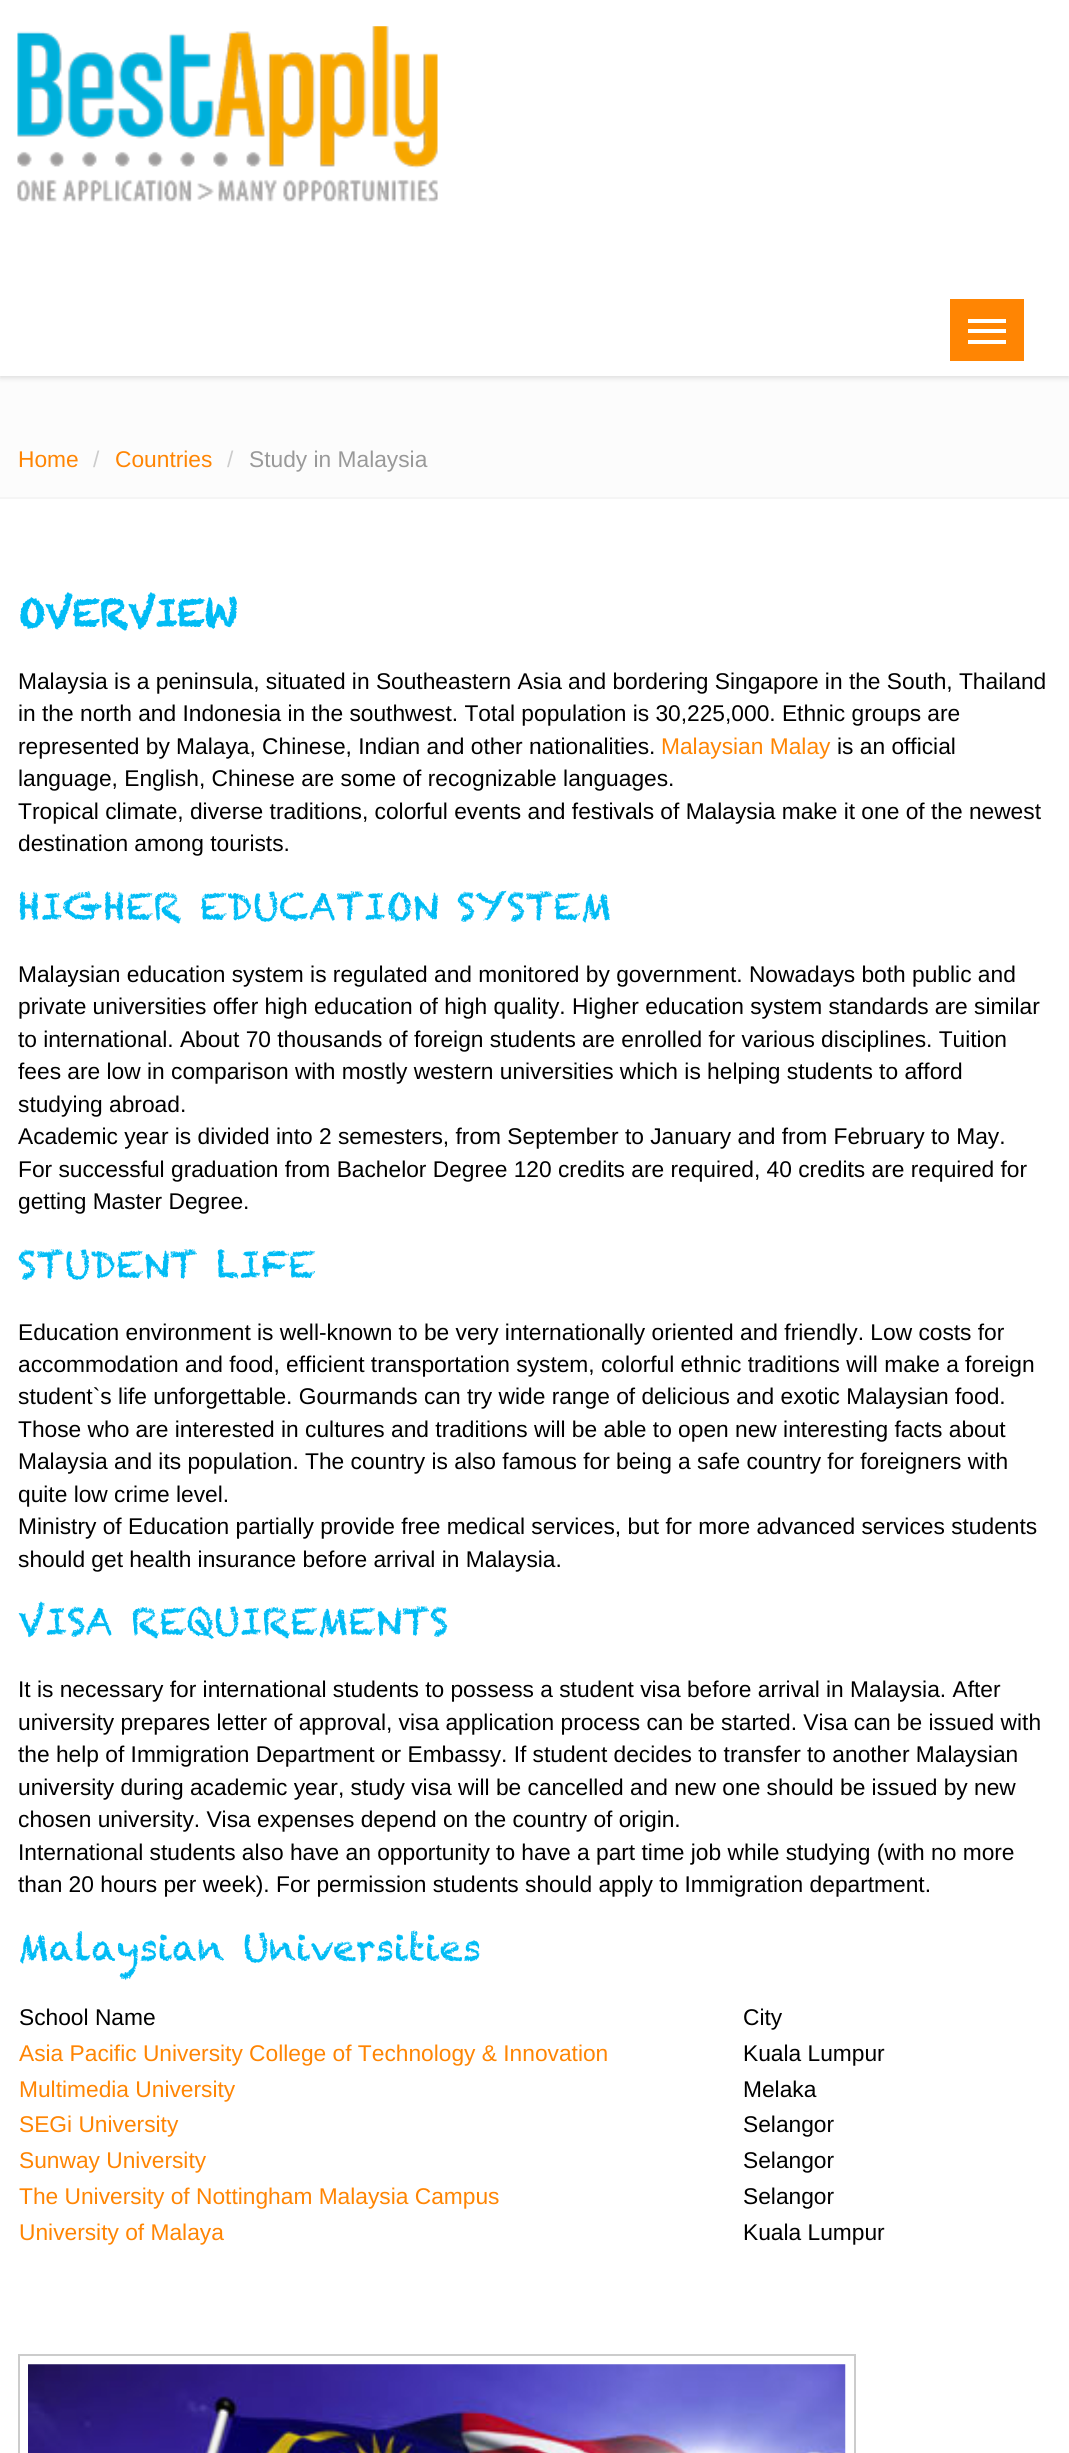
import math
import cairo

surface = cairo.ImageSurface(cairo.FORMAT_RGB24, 1069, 2453)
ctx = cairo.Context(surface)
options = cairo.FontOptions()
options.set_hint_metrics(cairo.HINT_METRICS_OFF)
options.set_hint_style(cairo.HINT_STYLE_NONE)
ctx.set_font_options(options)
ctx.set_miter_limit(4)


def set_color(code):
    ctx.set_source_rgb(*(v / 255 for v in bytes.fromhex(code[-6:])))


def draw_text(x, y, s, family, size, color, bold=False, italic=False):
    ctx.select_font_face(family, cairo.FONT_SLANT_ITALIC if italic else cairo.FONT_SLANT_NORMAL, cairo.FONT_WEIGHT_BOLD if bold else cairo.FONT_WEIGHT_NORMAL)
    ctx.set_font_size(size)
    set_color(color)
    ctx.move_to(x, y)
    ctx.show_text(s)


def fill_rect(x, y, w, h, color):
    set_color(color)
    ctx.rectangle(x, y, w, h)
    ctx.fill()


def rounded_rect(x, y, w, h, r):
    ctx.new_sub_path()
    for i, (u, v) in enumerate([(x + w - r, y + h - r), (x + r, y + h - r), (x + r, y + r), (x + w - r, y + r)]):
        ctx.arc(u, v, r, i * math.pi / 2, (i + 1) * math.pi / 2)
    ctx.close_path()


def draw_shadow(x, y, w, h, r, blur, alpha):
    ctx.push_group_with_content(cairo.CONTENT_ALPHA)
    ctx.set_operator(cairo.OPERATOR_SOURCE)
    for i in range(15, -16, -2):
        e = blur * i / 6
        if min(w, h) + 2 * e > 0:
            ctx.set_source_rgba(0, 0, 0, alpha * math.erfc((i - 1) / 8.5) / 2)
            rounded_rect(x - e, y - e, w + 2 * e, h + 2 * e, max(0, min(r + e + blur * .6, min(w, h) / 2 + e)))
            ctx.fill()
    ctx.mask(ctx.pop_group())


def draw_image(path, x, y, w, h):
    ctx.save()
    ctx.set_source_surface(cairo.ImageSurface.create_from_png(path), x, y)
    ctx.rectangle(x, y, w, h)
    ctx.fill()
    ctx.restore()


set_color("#ffffff")
ctx.paint()
fill_rect(0, 376, 1069, 121, "#fcfcfc")
set_color("#dddddd")
draw_shadow(0, 2, 1069, 376, 0, 2.5, 1)
fill_rect(0, 0, 1069, 376, "#ffffff")
draw_image("assets/img1.png", 17, 26, 421, 176)
fill_rect(950, 299, 74, 62, "#ff8503")
fill_rect(968, 319, 38, 4, "#ffffff")
fill_rect(968, 329, 38, 4, "#ffffff")
fill_rect(968, 340, 38, 4, "#ffffff")
fill_rect(0, 497, 1069, 2, "#f5f5f5")
draw_text(18, 467, "Home", "Liberation Sans", 22.75, "#ff8503")
draw_text(93, 467, "/", "Liberation Sans", 22.75, "#cccccc")
draw_text(115, 467, "Countries", "Liberation Sans", 22.75, "#ff8503")
draw_text(227, 467, "/", "Liberation Sans", 22.75, "#cccccc")
draw_text(249, 467, "Study in Malaysia", "Liberation Sans", 22.75, "#999999")
draw_text(18, 626, "OVERVIEW", "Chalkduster", 36.75, "#01bcf5", bold=True)
draw_text(18, 689, "Malaysia is a peninsula, situated in Southeastern Asia and bordering Singapore in the South, Thailand", "Liberation Sans", 22.75, "#000000")
draw_text(18, 721, "in the north and Indonesia in the southwest. Total population is 30,225,000. Ethnic groups are", "Liberation Sans", 22.75, "#000000")
draw_text(18, 754, "represented by Malaya, Chinese, Indian and other nationalities.", "Liberation Sans", 22.75, "#000000")
draw_text(661, 754, "Malaysian Malay", "Liberation Sans", 22.75, "#ff8503")
draw_text(837, 754, "is an official", "Liberation Sans", 22.75, "#000000")
draw_text(18, 786, "language, English, Chinese are some of recognizable languages.", "Liberation Sans", 22.75, "#000000")
draw_text(18, 819, "Tropical climate, diverse traditions, colorful events and festivals of Malaysia make it one of the newest", "Liberation Sans", 22.75, "#000000")
draw_text(18, 851, "destination among tourists.", "Liberation Sans", 22.75, "#000000")
draw_text(18, 919, "HIGHER EDUCATION SYSTEM", "Chalkduster", 36.75, "#01bcf5")
draw_text(18, 982, "Malaysian education system is regulated and monitored by government. Nowadays both public and", "Liberation Sans", 22.75, "#000000")
draw_text(18, 1014, "private universities offer high education of high quality. Higher education system standards are similar", "Liberation Sans", 22.75, "#000000")
draw_text(18, 1047, "to international. About 70 thousands of foreign students are enrolled for various disciplines. Tuition", "Liberation Sans", 22.75, "#000000")
draw_text(18, 1079, "fees are low in comparison with mostly western universities which is helping students to afford", "Liberation Sans", 22.75, "#000000")
draw_text(18, 1112, "studying abroad.", "Liberation Sans", 22.75, "#000000")
draw_text(18, 1144, "Academic year is divided into 2 semesters, from September to January and from February to May.", "Liberation Sans", 22.75, "#000000")
draw_text(18, 1177, "For successful graduation from Bachelor Degree 120 credits are required, 40 credits are required for", "Liberation Sans", 22.75, "#000000")
draw_text(18, 1209, "getting Master Degree.", "Liberation Sans", 22.75, "#000000")
draw_text(18, 1277, "STUDENT LIFE", "Chalkduster", 36.75, "#01bcf5")
draw_text(18, 1340, "Education environment is well-known to be very internationally oriented and friendly. Low costs for", "Liberation Sans", 22.75, "#000000")
draw_text(18, 1372, "accommodation and food, efficient transportation system, colorful ethnic traditions will make a foreign", "Liberation Sans", 22.75, "#000000")
draw_text(18, 1404, "student`s life unforgettable. Gourmands can try wide range of delicious and exotic Malaysian food.", "Liberation Sans", 22.75, "#000000")
draw_text(18, 1437, "Those who are interested in cultures and traditions will be able to open new interesting facts about", "Liberation Sans", 22.75, "#000000")
draw_text(18, 1469, "Malaysia and its population. The country is also famous for being a safe country for foreigners with", "Liberation Sans", 22.75, "#000000")
draw_text(18, 1502, "quite low crime level.", "Liberation Sans", 22.75, "#000000")
draw_text(18, 1534, "Ministry of Education partially provide free medical services, but for more advanced services students", "Liberation Sans", 22.75, "#000000")
draw_text(18, 1567, "should get health insurance before arrival in Malaysia.", "Liberation Sans", 22.75, "#000000")
draw_text(18, 1634, "VISA REQUIREMENTS", "Chalkduster", 36.75, "#01bcf5")
draw_text(18, 1697, "It is necessary for international students to possess a student visa before arrival in Malaysia. After", "Liberation Sans", 22.75, "#000000")
draw_text(18, 1730, "university prepares letter of approval, visa application process can be started. Visa can be issued with", "Liberation Sans", 22.75, "#000000")
draw_text(18, 1762, "the help of Immigration Department or Embassy. If student decides to transfer to another Malaysian", "Liberation Sans", 22.75, "#000000")
draw_text(18, 1795, "university during academic year, study visa will be cancelled and new one should be issued by new", "Liberation Sans", 22.75, "#000000")
draw_text(18, 1827, "chosen university. Visa expenses depend on the country of origin.", "Liberation Sans", 22.75, "#000000")
draw_text(18, 1860, "International students also have an opportunity to have a part time job while studying (with no more", "Liberation Sans", 22.75, "#000000")
draw_text(18, 1892, "than 20 hours per week). For permission students should apply to Immigration department.", "Liberation Sans", 22.75, "#000000")
draw_text(18, 1960, "Malaysian Universities", "Chalkduster", 36.75, "#01bcf5")
draw_text(19, 2025, "School Name", "Liberation Sans", 22.75, "#000000")
draw_text(743, 2025, "City", "Liberation Sans", 22.75, "#000000")
draw_text(19, 2061, "Asia Pacific University College of Technology & Innovation", "Liberation Sans", 22.75, "#ff8503")
draw_text(743, 2061, "Kuala Lumpur", "Liberation Sans", 22.75, "#000000")
draw_text(19, 2097, "Multimedia University", "Liberation Sans", 22.75, "#ff8503")
draw_text(743, 2097, "Melaka", "Liberation Sans", 22.75, "#000000")
draw_text(19, 2132, "SEGi University", "Liberation Sans", 22.75, "#ff8503")
draw_text(743, 2132, "Selangor", "Liberation Sans", 22.75, "#000000")
draw_text(19, 2168, "Sunway University", "Liberation Sans", 22.75, "#ff8503")
draw_text(743, 2168, "Selangor", "Liberation Sans", 22.75, "#000000")
draw_text(19, 2204, "The University of Nottingham Malaysia Campus", "Liberation Sans", 22.75, "#ff8503")
draw_text(743, 2204, "Selangor", "Liberation Sans", 22.75, "#000000")
draw_text(19, 2240, "University of Malaya", "Liberation Sans", 22.75, "#ff8503")
draw_text(743, 2240, "Kuala Lumpur", "Liberation Sans", 22.75, "#000000")
ctx.rectangle(19, 2355, 836, 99)
set_color("#cccccc")
ctx.stroke()
draw_image("assets/img2.png", 28, 2364, 818, 89)
surface.write_to_png("output.png")
